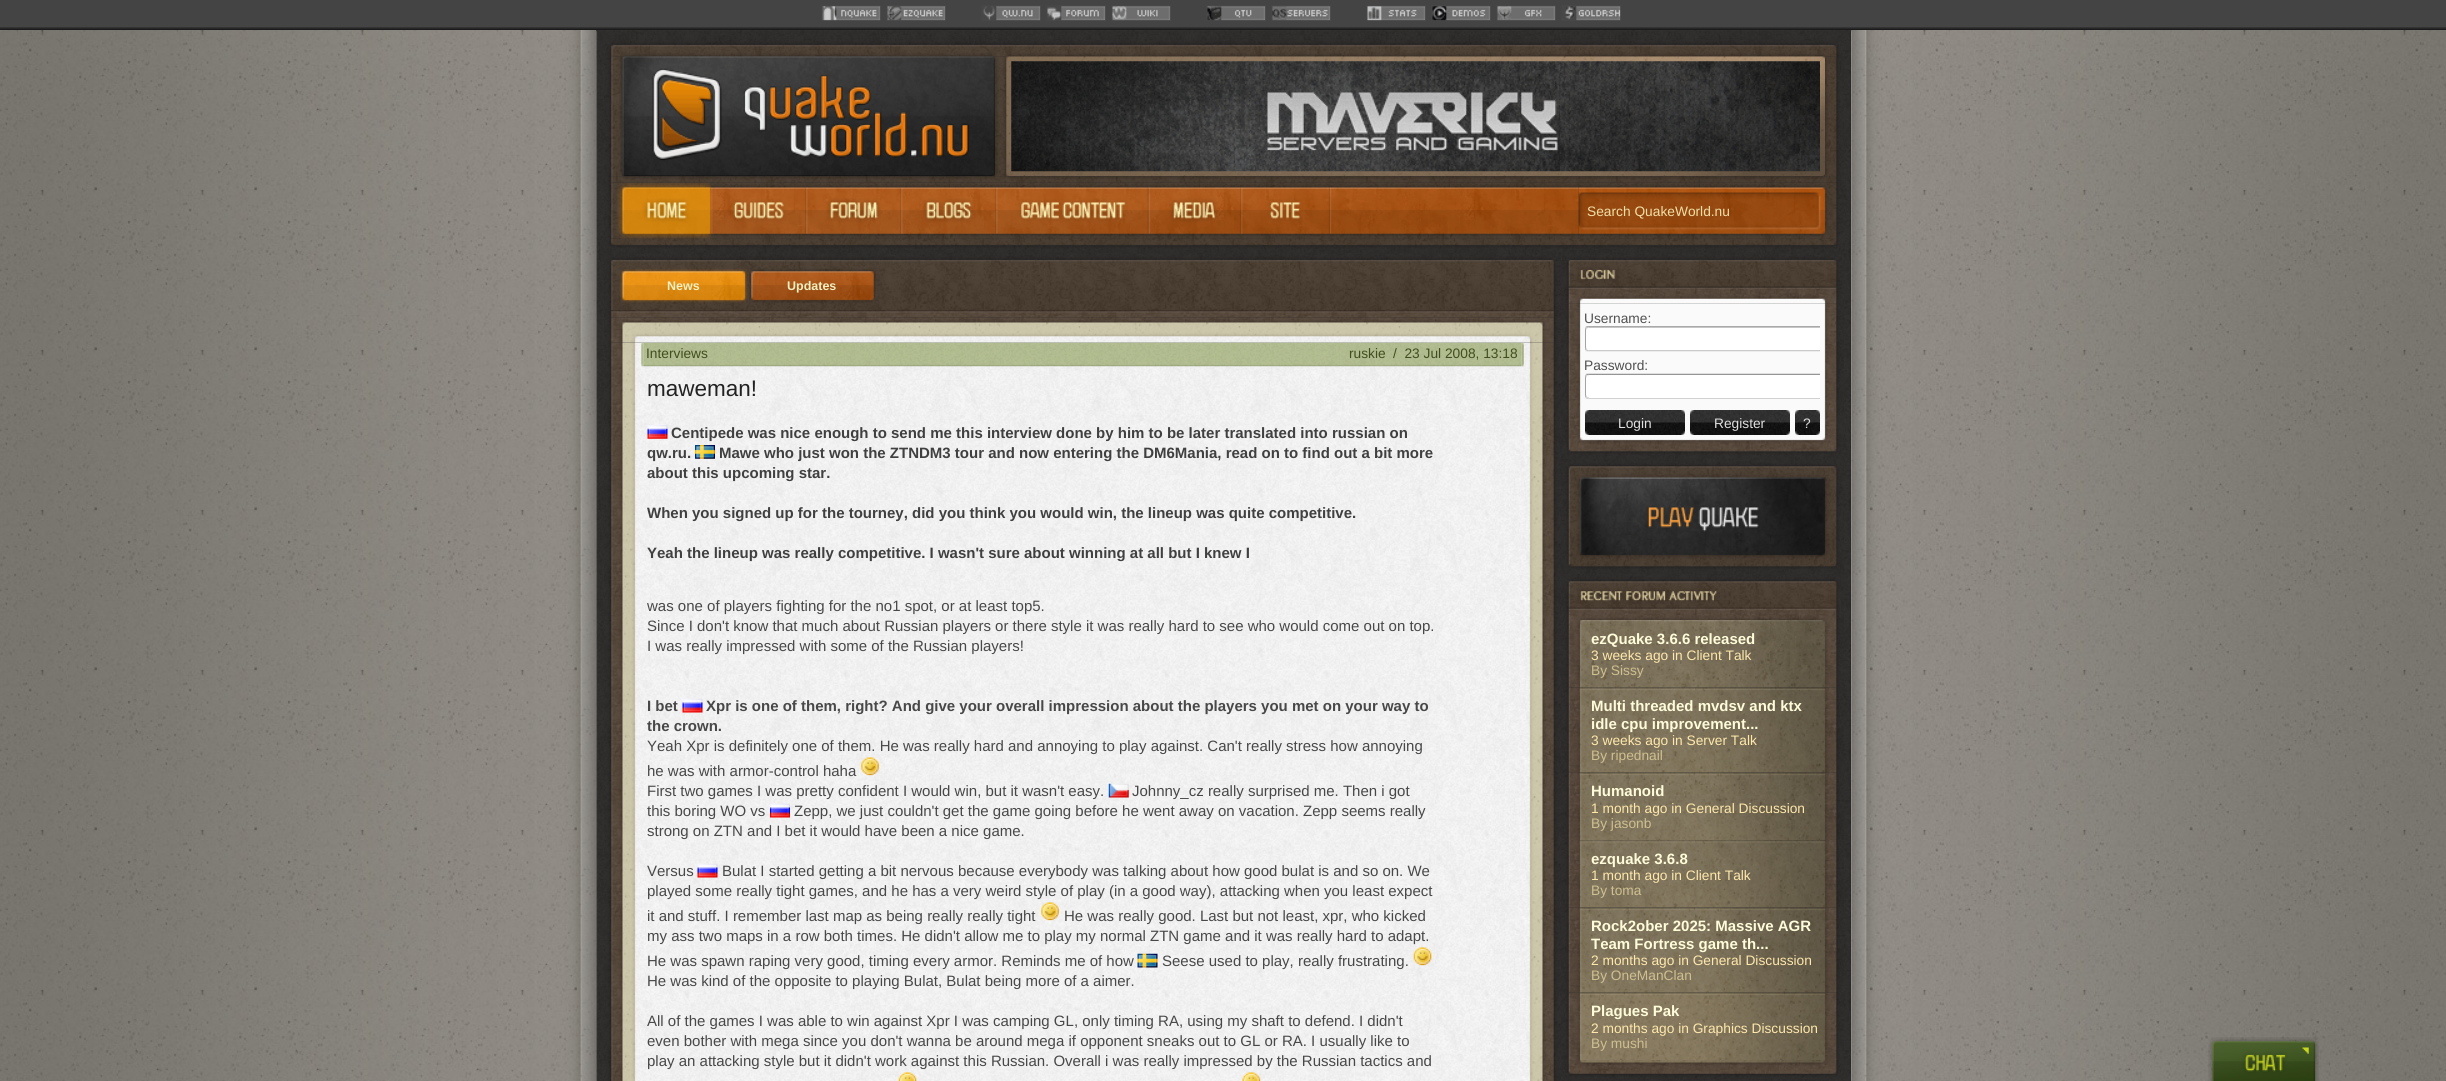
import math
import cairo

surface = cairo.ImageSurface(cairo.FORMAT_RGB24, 2446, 1081)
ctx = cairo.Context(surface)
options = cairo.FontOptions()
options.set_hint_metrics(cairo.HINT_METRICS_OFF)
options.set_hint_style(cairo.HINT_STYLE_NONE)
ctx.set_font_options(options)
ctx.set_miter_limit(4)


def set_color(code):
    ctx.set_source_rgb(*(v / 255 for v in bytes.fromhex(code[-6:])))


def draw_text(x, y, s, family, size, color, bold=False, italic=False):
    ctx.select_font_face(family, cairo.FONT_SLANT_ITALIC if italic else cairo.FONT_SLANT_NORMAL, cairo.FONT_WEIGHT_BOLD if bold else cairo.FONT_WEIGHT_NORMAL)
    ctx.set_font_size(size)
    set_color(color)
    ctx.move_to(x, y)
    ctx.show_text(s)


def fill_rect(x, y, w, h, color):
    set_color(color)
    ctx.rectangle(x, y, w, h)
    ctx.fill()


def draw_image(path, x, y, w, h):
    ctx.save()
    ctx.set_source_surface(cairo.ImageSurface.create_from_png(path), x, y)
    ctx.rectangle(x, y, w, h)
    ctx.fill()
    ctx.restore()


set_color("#ffffff")
ctx.paint()
draw_image("assets/img1.png", 0, 0, 2446, 30)
draw_image("assets/img2.png", 0, 30, 597, 1051)
draw_image("assets/img3.png", 596, 30, 1256, 1051)
draw_image("assets/img65.png", 1851, 30, 595, 1051)
draw_image("assets/img4.png", 596, 30, 1256, 2)
draw_image("assets/img6.png", 604, 56, 19, 121)
draw_image("assets/img7.png", 622, 56, 373, 121)
draw_image("assets/img8.png", 995, 56, 12, 121)
draw_image("assets/img9.png", 1006, 56, 819, 121)
draw_image("assets/img11.png", 1825, 56, 19, 121)
draw_image("assets/img5.png", 605, 38, 1234, 19)
draw_image("assets/img10.png", 1011, 61, 809, 111)
draw_image("assets/img13.png", 604, 182, 975, 57)
draw_image("assets/img14.png", 617, 182, 95, 57)
draw_image("assets/img22.png", 1578, 182, 266, 57)
draw_image("assets/img12.png", 608, 176, 1232, 7)
draw_image("assets/img15.png", 711, 187, 95, 47)
draw_image("assets/img16.png", 806, 187, 95, 47)
draw_image("assets/img17.png", 901, 187, 95, 47)
draw_image("assets/img18.png", 996, 187, 153, 47)
draw_image("assets/img19.png", 1148, 187, 93, 47)
draw_image("assets/img20.png", 1241, 187, 89, 47)
draw_image("assets/img21.png", 1330, 187, 2, 47)
draw_text(1587, 216, "Search QuakeWorld.nu", "Liberation Sans", 13.75, "#f0e0a8")
draw_image("assets/img24.png", 604, 252, 957, 66)
draw_image("assets/img45.png", 1561, 287, 283, 17)
draw_image("assets/img44.png", 1562, 252, 280, 36)
draw_image("assets/img23.png", 606, 238, 1234, 15)
draw_image("assets/img25.png", 620, 269, 128, 34)
draw_text(667, 290, "News", "Liberation Sans", 12.5, "#f0f0c0", bold=True)
draw_image("assets/img26.png", 749, 268, 127, 35)
draw_text(787, 290, "Updates", "Liberation Sans", 12.5, "#f0f0c0", bold=True)
draw_image("assets/img27.png", 604, 317, 957, 26)
draw_image("assets/img28.png", 604, 342, 957, 739)
draw_image("assets/img29.png", 641, 342, 3, 25)
draw_image("assets/img30.png", 643, 342, 879, 25)
draw_text(646, 358, "Interviews", "Liberation Sans", 13.75, "#424d1f")
draw_text(1349, 358, "ruskie", "Liberation Sans", 13.75, "#424d1f")
draw_text(1393, 358, "/  23 Jul 2008, 13:18", "Liberation Sans", 13.75, "#424d1f")
draw_image("assets/img31.png", 1521, 342, 3, 25)
draw_text(647, 396, "maweman!", "Liberation Sans", 22.5, "#222222")
draw_image("assets/img32.png", 647, 425, 21, 14)
draw_text(671, 438, "Centipede was nice enough to send me this interview done by him to be later translated into russian on", "Liberation Sans", 15, "#404040", bold=True)
draw_text(647, 458, "qw.ru.", "Liberation Sans", 15, "#404040", bold=True)
draw_image("assets/img33.png", 695, 445, 20, 14)
draw_text(719, 458, "Mawe who just won the ZTNDM3 tour and now entering the DM6Mania, read on to find out a bit more", "Liberation Sans", 15, "#404040", bold=True)
draw_text(647, 478, "about this upcoming star.", "Liberation Sans", 15, "#404040", bold=True)
draw_text(647, 518, "When you signed up for the tourney, did you think you would win, the lineup was quite competitive.", "Liberation Sans", 15, "#404040", bold=True)
draw_text(647, 558, "Yeah the lineup was really competitive. I wasn't sure about winning at all but I knew I", "Liberation Sans", 15, "#404040", bold=True)
draw_text(647, 611, "was one of players fighting for the no1 spot, or at least top5.", "Liberation Sans", 15, "#484848")
draw_text(647, 631, "Since I don't know that much about Russian players or there style it was really hard to see who would come out on top.", "Liberation Sans", 15, "#484848")
draw_text(647, 651, "I was really impressed with some of the Russian players!", "Liberation Sans", 15, "#484848")
draw_text(647, 711, "I bet", "Liberation Sans", 15, "#484848", bold=True)
draw_image("assets/img34.png", 682, 698, 21, 15)
draw_text(706, 711, "Xpr is one of them, right? And give your overall impression about the players you met on your way to", "Liberation Sans", 15, "#484848", bold=True)
draw_text(647, 731, "the crown.", "Liberation Sans", 15, "#484848", bold=True)
draw_text(647, 751, "Yeah Xpr is definitely one of them. He was really hard and annoying to play against. Can't really stress how annoying", "Liberation Sans", 15, "#484848")
draw_text(647, 776, "he was with armor-control haha", "Liberation Sans", 15, "#484848")
draw_image("assets/img35.png", 861, 757, 18, 19)
draw_text(647, 796, "First two games I was pretty confident I would win, but it wasn't easy.", "Liberation Sans", 15, "#484848")
draw_image("assets/img36.png", 1108, 783, 21, 15)
draw_text(1132, 796, "Johnny_cz really surprised me. Then i got", "Liberation Sans", 15, "#484848")
draw_text(647, 816, "this boring WO vs", "Liberation Sans", 15, "#484848")
draw_image("assets/img37.png", 770, 803, 20, 15)
draw_text(794, 816, "Zepp, we just couldn't get the game going before he went away on vacation. Zepp seems really", "Liberation Sans", 15, "#484848")
draw_text(647, 836, "strong on ZTN and I bet it would have been a nice game.", "Liberation Sans", 15, "#484848")
draw_text(647, 876, "Versus", "Liberation Sans", 15, "#484848")
draw_image("assets/img38.png", 697, 863, 21, 15)
draw_text(722, 876, "Bulat I started getting a bit nervous because everybody was talking about how good bulat is and so on. We", "Liberation Sans", 15, "#484848")
draw_text(647, 896, "played some really tight games, and he has a very weird style of play (in a good way), attacking when you least expect", "Liberation Sans", 15, "#484848")
draw_text(647, 921, "it and stuff. I remember last map as being really really tight", "Liberation Sans", 15, "#484848")
draw_image("assets/img39.png", 1041, 902, 18, 19)
draw_text(1064, 921, "He was really good. Last but not least, xpr, who kicked", "Liberation Sans", 15, "#484848")
draw_text(647, 941, "my ass two maps in a row both times. He didn't allow me to play my normal ZTN game and it was really hard to adapt.", "Liberation Sans", 15, "#484848")
draw_text(647, 966, "He was spawn raping very good, timing every armor. Reminds me of how", "Liberation Sans", 15, "#484848")
draw_image("assets/img40.png", 1137, 953, 21, 15)
draw_text(1162, 966, "Seese used to play, really frustrating.", "Liberation Sans", 15, "#484848")
draw_image("assets/img41.png", 1413, 947, 19, 19)
draw_text(647, 986, "He was kind of the opposite to playing Bulat, Bulat being more of a aimer.", "Liberation Sans", 15, "#484848")
draw_text(647, 1026, "All of the games I was able to win against Xpr I was camping GL, only timing RA, using my shaft to defend. I didn't", "Liberation Sans", 15, "#484848")
draw_text(647, 1046, "even bother with mega since you don't wanna be around mega if opponent sneaks out to GL or RA. I usually like to", "Liberation Sans", 15, "#484848")
draw_text(647, 1066, "play an attacking style but it didn't work against this Russian. Overall i was really impressed by the Russian tactics and", "Liberation Sans", 15, "#484848")
draw_image("assets/img42.png", 898, 1072, 19, 9)
draw_image("assets/img43.png", 1242, 1072, 19, 9)
draw_image("assets/img46.png", 1561, 303, 283, 132)
draw_text(1584, 323, "Username:", "Liberation Sans", 13.75, "#505050")
draw_image("assets/img48.png", 1588, 326, 232, 26)
draw_image("assets/img47.png", 1585, 326, 4, 26)
fill_rect(1589, 349, 231, 1, "#ffffff")
draw_text(1584, 370, "Password:", "Liberation Sans", 13.75, "#505050")
draw_image("assets/img50.png", 1588, 373, 232, 26)
draw_image("assets/img49.png", 1585, 373, 4, 26)
fill_rect(1589, 375, 231, 23, "#ffffff")
draw_image("assets/img51.png", 1585, 410, 100, 25)
draw_text(1618, 428, "Login", "Liberation Sans", 13.75, "#e0e0e0")
draw_image("assets/img52.png", 1690, 410, 100, 25)
draw_text(1714, 428, "Register", "Liberation Sans", 13.75, "#e0e0e0")
draw_image("assets/img53.png", 1795, 410, 25, 25)
draw_text(1803, 428, "?", "Liberation Sans", 13.75, "#e0e0e0")
draw_image("assets/img54.png", 1561, 435, 283, 24)
draw_image("assets/img55.png", 1561, 459, 283, 115)
draw_image("assets/img56.png", 1561, 574, 283, 46)
draw_image("assets/img57.png", 1561, 620, 283, 68)
draw_text(1591, 644, "ezQuake 3.6.6 released", "Liberation Sans", 15, "#fffcda", bold=True)
draw_text(1591, 660, "3 weeks ago in Client Talk", "Liberation Sans", 13.75, "#fee8ac")
draw_text(1591, 675, "By Sissy", "Liberation Sans", 13.75, "#cec090")
draw_image("assets/img58.png", 1561, 687, 283, 86)
draw_text(1591, 711, "Multi threaded mvdsv and ktx", "Liberation Sans", 15, "#fffcda", bold=True)
draw_text(1591, 729, "idle cpu improvement...", "Liberation Sans", 15, "#fffcda", bold=True)
draw_text(1591, 745, "3 weeks ago in Server Talk", "Liberation Sans", 13.75, "#fee8ac")
draw_text(1591, 760, "By ripednail", "Liberation Sans", 13.75, "#cec090")
draw_image("assets/img59.png", 1561, 772, 283, 68)
draw_text(1591, 796, "Humanoid", "Liberation Sans", 15, "#fffcda", bold=True)
draw_text(1591, 813, "1 month ago in General Discussion", "Liberation Sans", 13.75, "#fee8ac")
draw_text(1591, 828, "By jasonb", "Liberation Sans", 13.75, "#cec090")
draw_image("assets/img60.png", 1561, 840, 283, 68)
draw_text(1591, 864, "ezquake 3.6.8", "Liberation Sans", 15, "#fffcda", bold=True)
draw_text(1591, 880, "1 month ago in Client Talk", "Liberation Sans", 13.75, "#fee8ac")
draw_text(1591, 895, "By toma", "Liberation Sans", 13.75, "#cec090")
draw_image("assets/img61.png", 1561, 907, 283, 86)
draw_text(1591, 931, "Rock2ober 2025: Massive AGR", "Liberation Sans", 15, "#fffcda", bold=True)
draw_text(1591, 949, "Team Fortress game th...", "Liberation Sans", 15, "#fffcda", bold=True)
draw_text(1591, 965, "2 months ago in General Discussion", "Liberation Sans", 13.75, "#fee8ac")
draw_text(1591, 980, "By OneManClan", "Liberation Sans", 13.75, "#cec090")
draw_image("assets/img62.png", 1561, 992, 283, 68)
draw_text(1591, 1016, "Plagues Pak", "Liberation Sans", 15, "#fffcda", bold=True)
draw_text(1591, 1033, "2 months ago in Graphics Discussion", "Liberation Sans", 13.75, "#fee8ac")
draw_text(1591, 1048, "By mushi", "Liberation Sans", 13.75, "#cec090")
draw_image("assets/img63.png", 1563, 1060, 278, 19)
draw_image("assets/img64.png", 1561, 1079, 260, 2)
draw_image("assets/img66.png", 2208, 1037, 111, 44)
surface.write_to_png("output.png")
